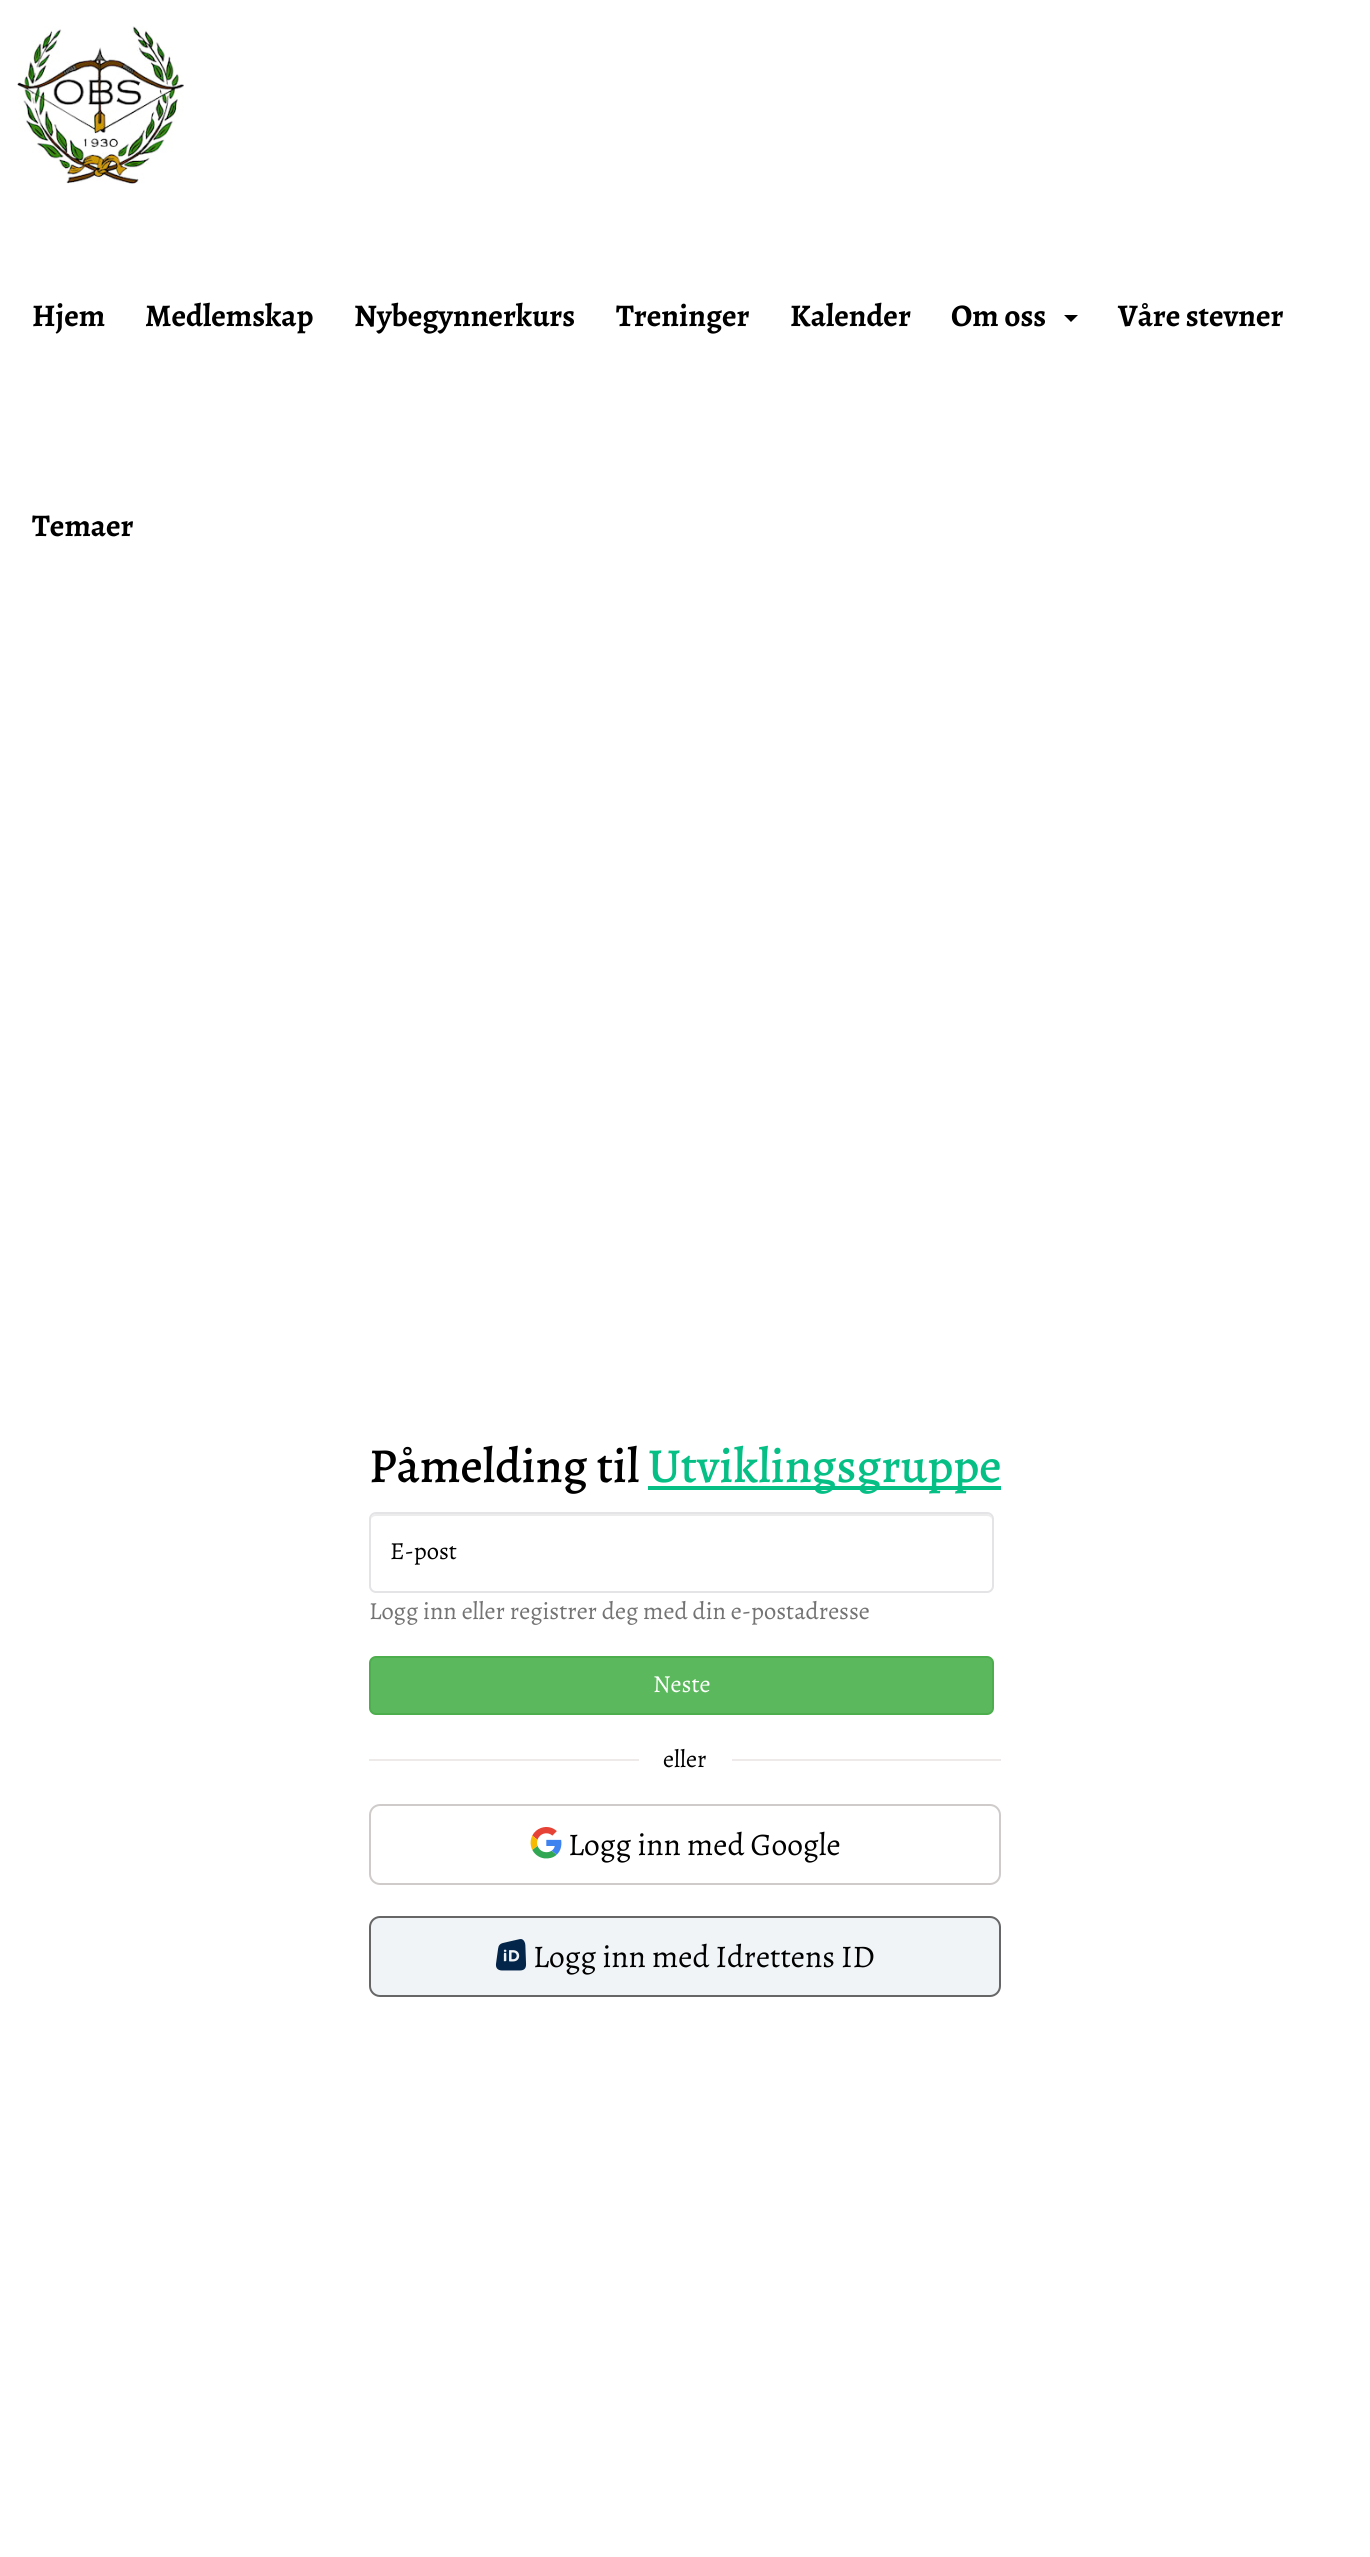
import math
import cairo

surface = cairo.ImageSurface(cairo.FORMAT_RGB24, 1370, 2557)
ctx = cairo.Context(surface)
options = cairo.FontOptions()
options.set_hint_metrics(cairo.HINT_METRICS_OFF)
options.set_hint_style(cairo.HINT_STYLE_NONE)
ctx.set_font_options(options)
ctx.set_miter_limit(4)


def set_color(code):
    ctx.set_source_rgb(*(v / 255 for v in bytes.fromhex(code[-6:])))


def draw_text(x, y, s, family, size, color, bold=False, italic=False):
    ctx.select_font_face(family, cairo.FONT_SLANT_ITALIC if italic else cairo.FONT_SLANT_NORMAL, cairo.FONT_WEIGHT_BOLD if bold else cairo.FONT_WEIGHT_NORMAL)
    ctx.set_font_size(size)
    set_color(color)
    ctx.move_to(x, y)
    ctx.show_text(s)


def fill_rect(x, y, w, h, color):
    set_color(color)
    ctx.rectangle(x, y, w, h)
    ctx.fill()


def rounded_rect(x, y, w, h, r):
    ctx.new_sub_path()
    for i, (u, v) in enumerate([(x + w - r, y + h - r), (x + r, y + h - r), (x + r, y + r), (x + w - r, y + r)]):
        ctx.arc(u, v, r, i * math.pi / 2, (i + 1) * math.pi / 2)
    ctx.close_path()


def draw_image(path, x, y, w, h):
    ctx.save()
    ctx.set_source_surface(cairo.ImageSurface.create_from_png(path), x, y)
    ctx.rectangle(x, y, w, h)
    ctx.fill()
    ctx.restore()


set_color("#ffffff")
ctx.paint()
draw_image("assets/img1.png", 17, 26, 167, 158)
draw_text(32, 326, "Hjem", "Alegreya", 31.5, "#000000", bold=True)
draw_text(145, 326, "Medlemskap", "Alegreya", 31.5, "#000000", bold=True)
draw_text(354, 326, "Nybegynnerkurs", "Alegreya", 31.5, "#000000", bold=True)
draw_text(616, 326, "Treninger", "Alegreya", 31.5, "#000000", bold=True)
draw_text(790, 326, "Kalender", "Alegreya", 31.5, "#000000", bold=True)
draw_text(951, 326, "Om oss", "Alegreya", 31.5, "#000000", bold=True)
ctx.new_path()
ctx.move_to(1064, 315)
ctx.line_to(1078, 315)
ctx.line_to(1071, 322)
ctx.close_path()
ctx.fill()
draw_text(1118, 326, "Våre stevner", "Alegreya", 31.5, "#000000", bold=True)
draw_text(32, 536, "Temaer", "Alegreya", 31.5, "#000000", bold=True)
draw_text(369, 1482, "Påmelding til", "Alegreya Medium", 49, "#000000")
fill_rect(648, 1486, 353, 4, "#05bf85")
draw_text(648, 1482, "Utviklingsgruppe", "Alegreya Medium", 49, "#05bf85")
set_color("#ececec")
ctx.new_path()
ctx.move_to(376, 1516)
ctx.line_to(987, 1516)
ctx.curve_to(990, 1516, 992, 1518, 992, 1521)
ctx.curve_to(992, 1518, 991, 1514, 987, 1514)
ctx.line_to(376, 1514)
ctx.curve_to(372, 1514, 371, 1518, 371, 1521)
ctx.curve_to(371, 1518, 373, 1516, 376, 1516)
ctx.close_path()
ctx.fill()
rounded_rect(370, 1513, 623, 79, 6)
set_color("#e4e4e7")
ctx.stroke()
draw_text(390, 1559, "E-post", "Alegreya", 24.5, "#000000")
draw_text(369, 1619, "Logg inn eller registrer deg med din e-postadresse", "Alegreya", 24.5, "#737373")
set_color("#5cb85c")
rounded_rect(370, 1657, 623, 57, 6)
ctx.fill_preserve()
set_color("#4cae4c")
ctx.stroke()
draw_text(653, 1692, "Neste", "Alegreya", 24.5, "#ffffff")
fill_rect(369, 1759, 270, 2, "#edeae9")
draw_text(663, 1767, "eller", "Alegreya", 24.5, "#000000")
fill_rect(732, 1759, 269, 2, "#edeae9")
rounded_rect(370, 1805, 630, 79, 10)
set_color("#cfcbcb")
ctx.stroke()
draw_image("assets/img2.png", 530, 1827, 32, 32)
draw_text(568, 1855, "Logg inn med Google", "Alegreya", 31.5, "#000000")
set_color("#f0f4f7")
rounded_rect(370, 1917, 630, 79, 10)
ctx.fill_preserve()
set_color("#666666")
ctx.stroke()
draw_image("assets/img3.png", 495, 1939, 32, 32)
draw_text(533, 1967, "Logg inn med Idrettens ID", "Alegreya", 31.5, "#000000")
surface.write_to_png("output.png")
